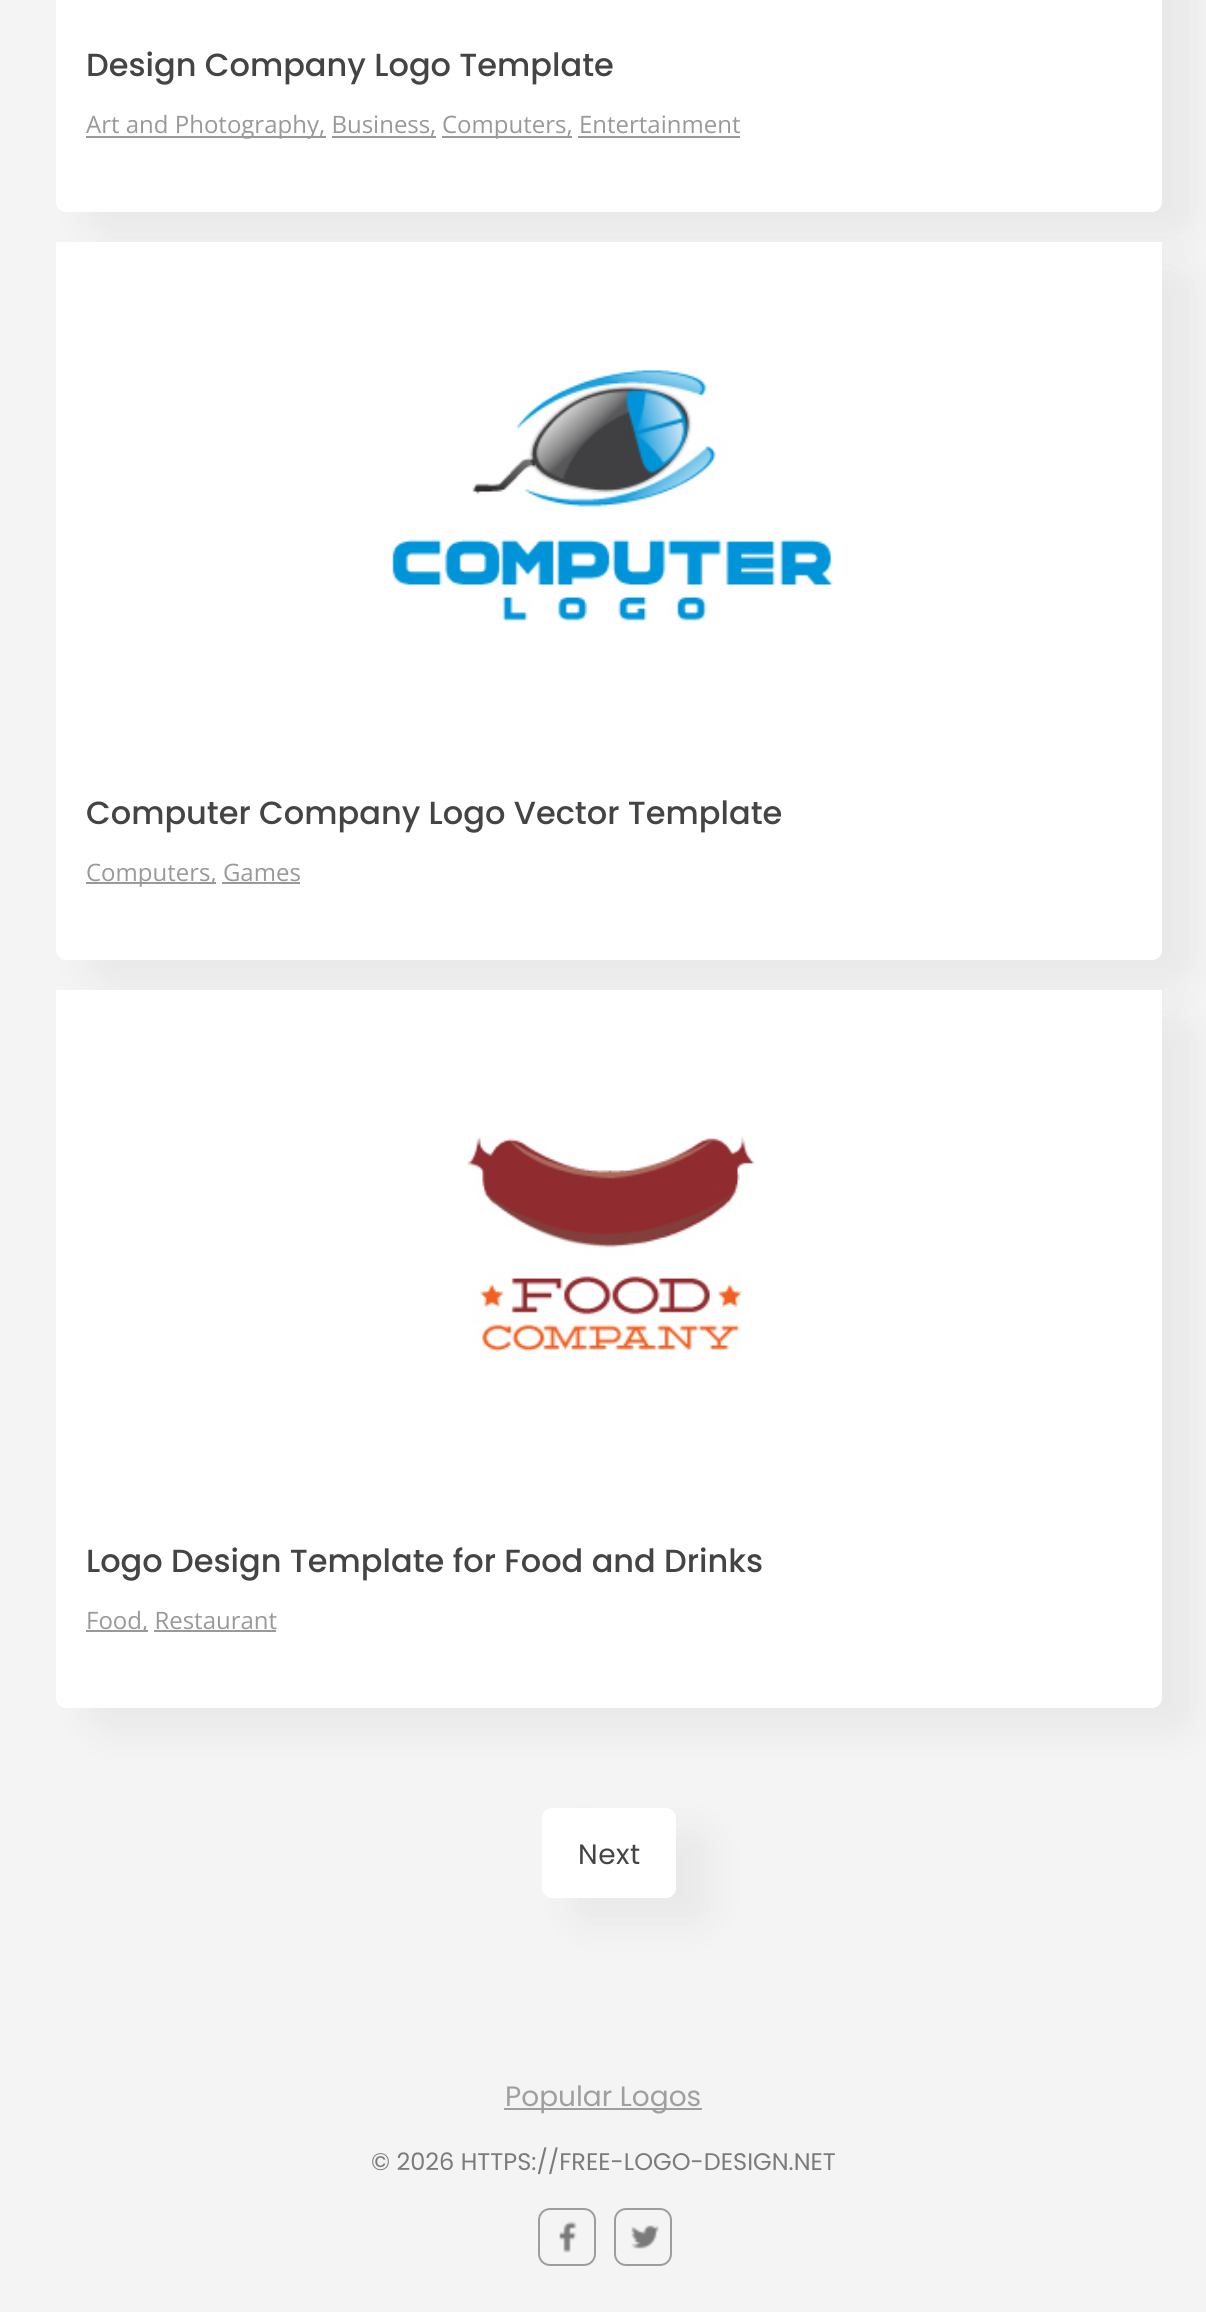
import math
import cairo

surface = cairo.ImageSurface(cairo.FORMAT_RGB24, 1206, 2312)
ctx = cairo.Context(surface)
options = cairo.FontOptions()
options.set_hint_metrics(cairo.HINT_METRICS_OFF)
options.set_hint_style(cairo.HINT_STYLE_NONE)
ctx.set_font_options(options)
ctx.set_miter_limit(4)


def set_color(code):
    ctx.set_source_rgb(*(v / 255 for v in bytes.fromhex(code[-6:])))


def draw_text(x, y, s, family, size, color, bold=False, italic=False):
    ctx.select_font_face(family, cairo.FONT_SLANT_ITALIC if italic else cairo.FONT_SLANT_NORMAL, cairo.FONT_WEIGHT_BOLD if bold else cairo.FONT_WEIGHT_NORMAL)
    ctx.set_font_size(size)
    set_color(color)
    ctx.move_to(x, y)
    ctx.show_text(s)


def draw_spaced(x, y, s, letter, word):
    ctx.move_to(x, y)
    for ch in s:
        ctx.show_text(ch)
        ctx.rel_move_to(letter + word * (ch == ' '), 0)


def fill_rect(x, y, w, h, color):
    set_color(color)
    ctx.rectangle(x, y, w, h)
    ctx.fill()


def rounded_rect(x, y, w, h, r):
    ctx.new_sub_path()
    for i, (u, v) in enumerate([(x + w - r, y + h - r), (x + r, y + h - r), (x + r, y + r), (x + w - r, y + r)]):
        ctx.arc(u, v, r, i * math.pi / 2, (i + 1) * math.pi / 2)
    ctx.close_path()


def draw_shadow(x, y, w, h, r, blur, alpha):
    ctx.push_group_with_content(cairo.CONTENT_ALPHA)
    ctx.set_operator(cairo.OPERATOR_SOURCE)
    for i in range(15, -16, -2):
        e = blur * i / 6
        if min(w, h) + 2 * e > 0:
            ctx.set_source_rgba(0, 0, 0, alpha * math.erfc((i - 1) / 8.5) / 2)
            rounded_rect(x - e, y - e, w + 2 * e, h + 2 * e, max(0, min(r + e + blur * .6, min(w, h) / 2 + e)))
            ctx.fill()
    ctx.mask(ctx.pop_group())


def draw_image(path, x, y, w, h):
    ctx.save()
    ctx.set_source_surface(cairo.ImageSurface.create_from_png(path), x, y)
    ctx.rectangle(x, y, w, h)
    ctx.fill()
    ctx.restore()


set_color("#f4f4f4")
ctx.paint()
set_color("#000000")
draw_shadow(88, -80, 1106, 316, 20, 20, 0.05)
fill_rect(56, 0, 1106, 4, "#ffffff")
ctx.new_path()
ctx.move_to(56, 4)
ctx.line_to(1162, 4)
ctx.line_to(1162, 202)
ctx.curve_to(1162, 207.5, 1157.5, 212, 1152, 212)
ctx.line_to(66, 212)
ctx.curve_to(60.5, 212, 56, 207.5, 56, 202)
ctx.close_path()
ctx.fill()
draw_text(86, 76, "Design Company Logo Template", "Poppins Medium", 32, "#444444")
fill_rect(86, 136, 232, 2, "#999999")
draw_text(86, 133, "Art and Photography", "Open Sans", 24, "#999999")
fill_rect(318, 136, 8, 2, "#999999")
draw_text(319, 133, ", Business", "Open Sans", 24, "#999999")
fill_rect(332, 136, 104, 2, "#999999")
draw_text(430, 133, ",", "Open Sans", 24, "#999999")
fill_rect(442, 136, 130, 2, "#999999")
draw_text(442, 133, "Computers, Entertainment", "Open Sans", 24, "#999999")
fill_rect(578, 136, 162, 2, "#999999")
set_color("#000000")
draw_shadow(88, 266, 1106, 718, 20, 20, 0.05)
fill_rect(56, 242, 1106, 510, "#ffffff")
draw_image("assets/img1.png", 392, 370, 441, 251)
ctx.new_path()
ctx.move_to(56, 752)
ctx.line_to(1162, 752)
ctx.line_to(1162, 950)
ctx.curve_to(1162, 955.5, 1157.5, 960, 1152, 960)
ctx.line_to(66, 960)
ctx.curve_to(60.5, 960, 56, 955.5, 56, 950)
ctx.close_path()
ctx.fill()
draw_text(86, 824, "Computer Company Logo Vector Template", "Poppins Medium", 32, "#444444")
fill_rect(86, 882, 130, 2, "#999999")
draw_text(86, 881, "Computers, Games", "Open Sans", 24, "#999999")
fill_rect(222, 882, 78, 2, "#999999")
set_color("#000000")
draw_shadow(88, 1014, 1106, 718, 20, 20, 0.05)
fill_rect(56, 990, 1106, 510, "#ffffff")
draw_image("assets/img2.png", 467, 1136, 288, 224)
ctx.new_path()
ctx.move_to(56, 1500)
ctx.line_to(1162, 1500)
ctx.line_to(1162, 1698)
ctx.curve_to(1162, 1703.5, 1157.5, 1708, 1152, 1708)
ctx.line_to(66, 1708)
ctx.curve_to(60.5, 1708, 56, 1703.5, 56, 1698)
ctx.close_path()
ctx.fill()
draw_text(86, 1572, "Logo Design Template for Food and Drinks", "Poppins Medium", 32, "#444444")
fill_rect(86, 1630, 62, 2, "#999999")
draw_text(86, 1629, "Food, Restaurant", "Open Sans", 24, "#999999")
fill_rect(154, 1630, 122, 2, "#999999")
set_color("#000000")
draw_shadow(574, 1832, 134, 90, 10, 20, 0.05)
set_color("#ffffff")
rounded_rect(544, 1810, 130, 86, 8)
ctx.fill_preserve()
ctx.set_line_width(4)
ctx.stroke()
ctx.select_font_face("Poppins")
ctx.set_font_size(28)
set_color("#444444")
draw_spaced(578, 1864, "Next", 0.5, 0)
fill_rect(504, 2108, 198, 2, "#9f9f9f")
draw_text(505, 2106, "Popular Logos", "Poppins", 28, "#9f9f9f")
draw_text(371, 2170, "© 2026 HTTPS://FREE-LOGO-DESIGN.NET", "Poppins", 24, "#7b7b7b")
rounded_rect(539, 2209, 56, 56, 11)
set_color("#9b9ea1")
ctx.set_line_width(2)
ctx.stroke()
draw_image("assets/img3.png", 559, 2221, 18, 32)
rounded_rect(615, 2209, 56, 56, 11)
ctx.stroke()
draw_image("assets/img4.png", 631, 2225, 28, 24)
surface.write_to_png("output.png")
